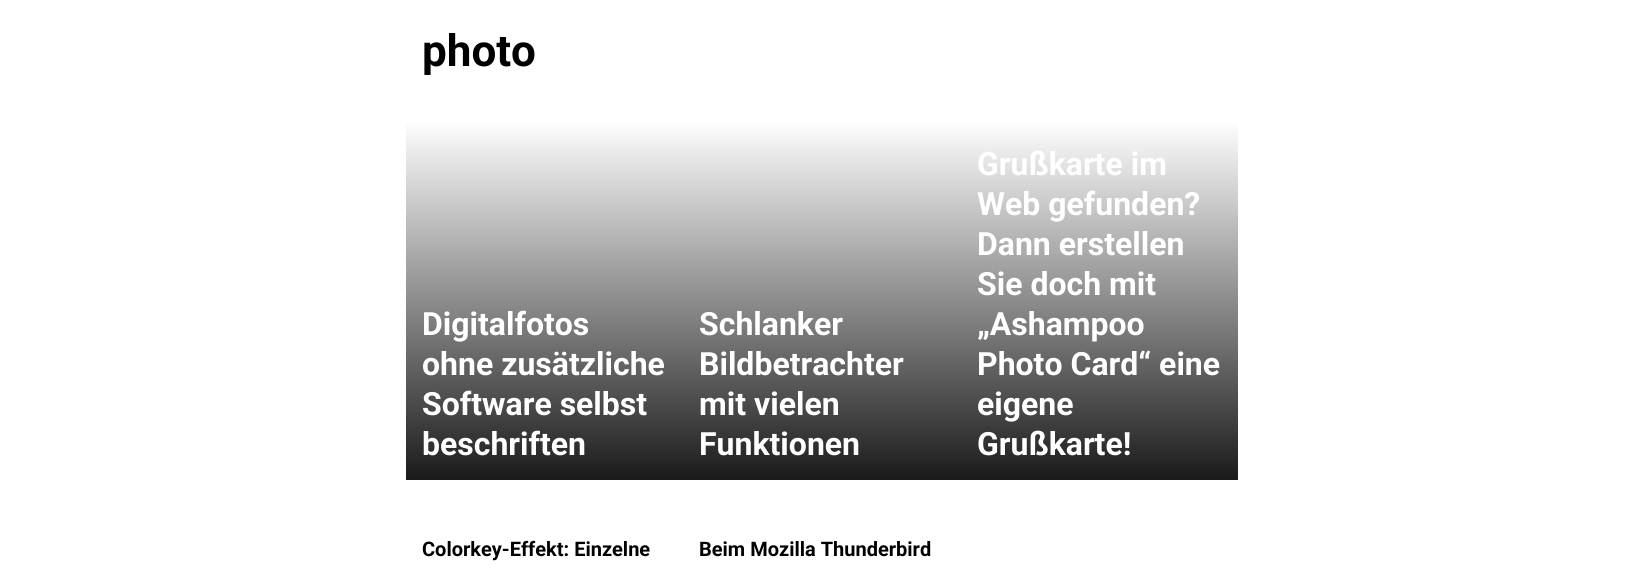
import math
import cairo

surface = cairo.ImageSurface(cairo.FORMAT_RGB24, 1644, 575)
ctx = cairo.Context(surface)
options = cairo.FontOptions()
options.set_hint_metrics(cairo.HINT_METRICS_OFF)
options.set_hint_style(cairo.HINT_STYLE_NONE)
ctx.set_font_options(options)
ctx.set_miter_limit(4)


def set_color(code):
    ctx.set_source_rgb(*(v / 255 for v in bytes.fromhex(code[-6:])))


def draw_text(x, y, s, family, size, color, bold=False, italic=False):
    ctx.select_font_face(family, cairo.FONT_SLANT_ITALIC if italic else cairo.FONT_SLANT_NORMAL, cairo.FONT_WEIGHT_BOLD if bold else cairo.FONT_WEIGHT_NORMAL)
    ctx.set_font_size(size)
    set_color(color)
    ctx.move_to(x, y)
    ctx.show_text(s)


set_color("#ffffff")
ctx.paint()
draw_text(422, 66, "photo", "Roboto", 44, "#000000", bold=True)
gradient = cairo.LinearGradient(545, 120, 545, 480)
gradient.add_color_stop_rgba(0, 1, 1, 1, 1)
gradient.add_color_stop_rgba(1, 0.102, 0.102, 0.102, 1)
ctx.set_source(gradient)
ctx.rectangle(406, 124, 277, 356)
ctx.fill()
draw_text(422, 335, "Digitalfotos", "Roboto", 32, "#ffffff", bold=True)
draw_text(422, 375, "ohne zusätzliche", "Roboto", 32, "#ffffff", bold=True)
draw_text(422, 415, "Software selbst", "Roboto", 32, "#ffffff", bold=True)
draw_text(422, 455, "beschriften", "Roboto", 32, "#ffffff", bold=True)
gradient = cairo.LinearGradient(822, 120, 822, 480)
gradient.add_color_stop_rgba(0, 1, 1, 1, 1)
gradient.add_color_stop_rgba(1, 0.102, 0.102, 0.102, 1)
ctx.set_source(gradient)
ctx.rectangle(683, 124, 278, 356)
ctx.fill()
draw_text(699, 335, "Schlanker", "Roboto", 32, "#ffffff", bold=True)
draw_text(699, 375, "Bildbetrachter", "Roboto", 32, "#ffffff", bold=True)
draw_text(699, 415, "mit vielen", "Roboto", 32, "#ffffff", bold=True)
draw_text(699, 455, "Funktionen", "Roboto", 32, "#ffffff", bold=True)
gradient = cairo.LinearGradient(1100, 120, 1100, 480)
gradient.add_color_stop_rgba(0, 1, 1, 1, 1)
gradient.add_color_stop_rgba(1, 0.102, 0.102, 0.102, 1)
ctx.set_source(gradient)
ctx.rectangle(961, 124, 277, 356)
ctx.fill()
draw_text(977, 175, "Grußkarte im", "Roboto", 32, "#ffffff", bold=True)
draw_text(977, 215, "Web gefunden?", "Roboto", 32, "#ffffff", bold=True)
draw_text(977, 255, "Dann erstellen", "Roboto", 32, "#ffffff", bold=True)
draw_text(977, 295, "Sie doch mit", "Roboto", 32, "#ffffff", bold=True)
draw_text(977, 335, "„Ashampoo", "Roboto", 32, "#ffffff", bold=True)
draw_text(977, 375, "Photo Card“ eine", "Roboto", 32, "#ffffff", bold=True)
draw_text(977, 415, "eigene", "Roboto", 32, "#ffffff", bold=True)
draw_text(977, 455, "Grußkarte!", "Roboto", 32, "#ffffff", bold=True)
draw_text(422, 556, "Colorkey-Effekt: Einzelne", "Roboto", 20, "#000000", bold=True)
draw_text(699, 556, "Beim Mozilla Thunderbird", "Roboto", 20, "#000000", bold=True)
surface.write_to_png("output.png")
